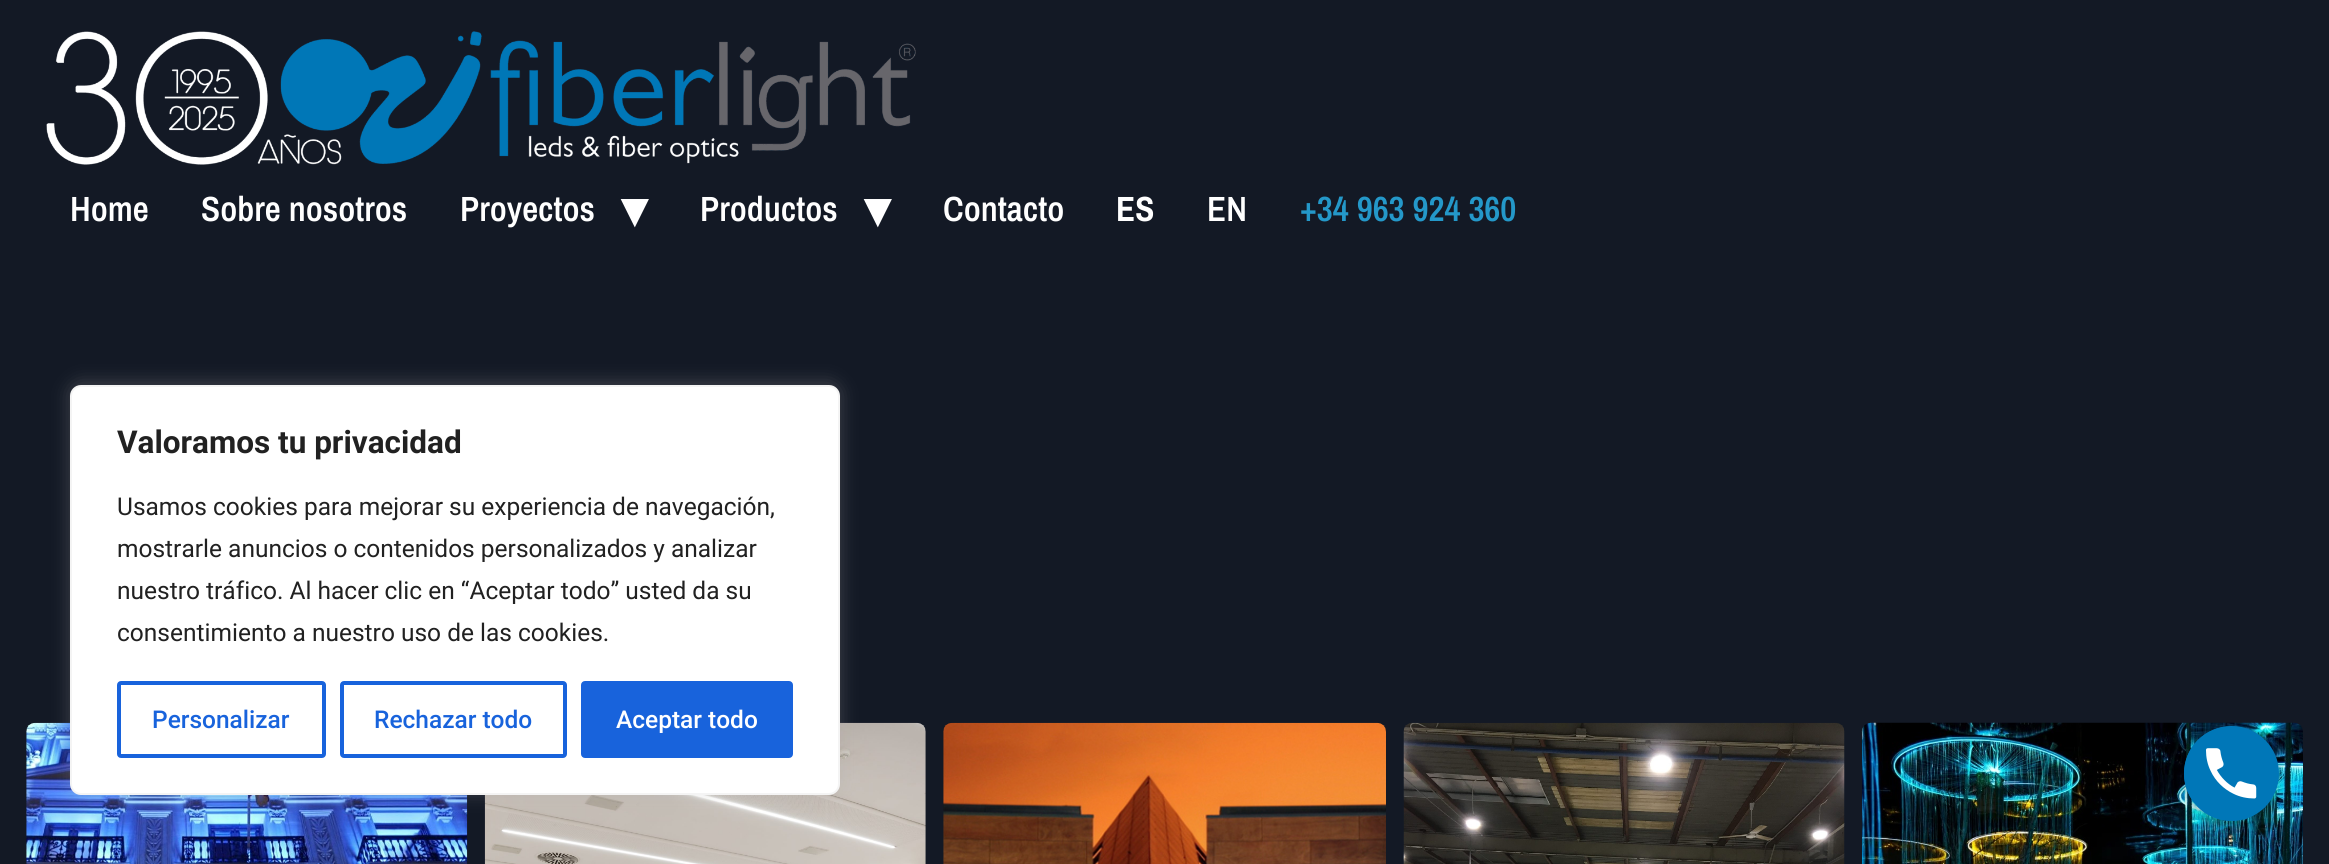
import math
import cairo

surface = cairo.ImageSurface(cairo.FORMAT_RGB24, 2329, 864)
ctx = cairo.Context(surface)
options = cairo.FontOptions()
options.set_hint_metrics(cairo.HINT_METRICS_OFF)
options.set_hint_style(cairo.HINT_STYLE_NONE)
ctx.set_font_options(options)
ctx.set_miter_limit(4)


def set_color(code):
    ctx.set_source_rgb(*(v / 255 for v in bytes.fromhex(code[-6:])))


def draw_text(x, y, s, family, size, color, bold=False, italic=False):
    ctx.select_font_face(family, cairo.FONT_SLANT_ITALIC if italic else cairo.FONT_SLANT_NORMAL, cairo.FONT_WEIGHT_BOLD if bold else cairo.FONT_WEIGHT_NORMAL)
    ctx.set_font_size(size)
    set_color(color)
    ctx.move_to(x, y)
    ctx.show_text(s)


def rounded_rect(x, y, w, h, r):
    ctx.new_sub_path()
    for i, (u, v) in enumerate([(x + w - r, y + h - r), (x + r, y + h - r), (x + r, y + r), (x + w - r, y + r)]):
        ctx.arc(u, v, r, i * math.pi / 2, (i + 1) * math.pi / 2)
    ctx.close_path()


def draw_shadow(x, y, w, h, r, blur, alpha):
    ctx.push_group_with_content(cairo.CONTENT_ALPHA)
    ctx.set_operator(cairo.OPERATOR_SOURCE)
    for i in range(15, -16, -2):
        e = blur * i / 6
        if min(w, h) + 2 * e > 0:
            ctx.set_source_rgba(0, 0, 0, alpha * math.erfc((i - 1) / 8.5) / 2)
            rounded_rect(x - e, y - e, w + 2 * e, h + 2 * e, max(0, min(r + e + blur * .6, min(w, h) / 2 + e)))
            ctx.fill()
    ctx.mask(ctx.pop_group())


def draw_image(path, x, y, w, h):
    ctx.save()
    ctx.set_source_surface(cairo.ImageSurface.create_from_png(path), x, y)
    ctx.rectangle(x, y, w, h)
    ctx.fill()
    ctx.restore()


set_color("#131925")
ctx.paint()
draw_image("assets/img1.png", 46, 31, 870, 134)
draw_text(70, 221, "Home", "Archivo Narrow SemiBold", 35, "#ffffff")
draw_text(201, 221, "Sobre nosotros", "Archivo Narrow SemiBold", 35, "#ffffff")
draw_text(460, 221, "Proyectos", "Archivo Narrow SemiBold", 35, "#ffffff")
draw_text(621, 227, "▾", "DejaVu Sans", 52, "#ffffff", bold=True)
draw_text(700, 221, "Productos", "Archivo Narrow SemiBold", 35, "#ffffff")
draw_text(864, 227, "▾", "DejaVu Sans", 52, "#ffffff", bold=True)
draw_text(943, 221, "Contacto", "Archivo Narrow SemiBold", 35, "#ffffff")
draw_text(1116, 221, "ES", "Archivo Narrow", 35, "#ffffff", bold=True)
draw_text(1207, 221, "EN", "Archivo Narrow SemiBold", 35, "#ffffff")
draw_text(1300, 221, "+34 963 924 360", "Archivo Narrow SemiBold", 35, "#2498c9")
draw_image("assets/img3.png", 26, 722, 442, 142)
draw_image("assets/img4.png", 484, 722, 442, 142)
set_color("#acabab")
draw_shadow(70, 383, 770, 410, 11, 9, 0.3)
set_color("#ffffff")
rounded_rect(71, 386, 768, 408, 10)
ctx.fill_preserve()
set_color("#f4f4f4")
ctx.stroke()
draw_text(117, 453, "Valoramos tu privacidad", "Roboto", 31.5, "#212121", bold=True)
draw_text(117, 515, "Usamos cookies para mejorar su experiencia de navegación,", "Roboto", 24.5, "#212121")
draw_text(117, 557, "mostrarle anuncios o contenidos personalizados y analizar", "Roboto", 24.5, "#212121")
draw_text(117, 599, "nuestro tráfico. Al hacer clic en “Aceptar todo” usted da su", "Roboto", 24.5, "#212121")
draw_text(117, 641, "consentimiento a nuestro uso de las cookies.", "Roboto", 24.5, "#212121")
rounded_rect(119, 683, 205, 73, 2)
set_color("#1863dc")
ctx.set_line_width(4)
ctx.stroke()
draw_text(152, 728, "Personalizar", "Roboto Medium", 24.5, "#1863dc")
rounded_rect(342, 683, 223, 73, 2)
ctx.stroke()
draw_text(374, 728, "Rechazar todo", "Roboto Medium", 24.5, "#1863dc")
rounded_rect(583, 683, 208, 73, 2)
ctx.fill_preserve()
ctx.stroke()
draw_text(616, 728, "Aceptar todo", "Roboto Medium", 24.5, "#ffffff")
draw_image("assets/img7.png", 1861, 722, 442, 142)
set_color("#000000")
draw_shadow(2184, 732, 95, 94, 47, 5, 0.25)
set_color("#0077b8")
ctx.arc(2231.5, 773.5, 47.5, 0, 2 * math.pi)
ctx.fill()
draw_image("assets/img2.png", 2184, 726, 73, 95)
draw_image("assets/img5.png", 943, 722, 443, 142)
draw_image("assets/img6.png", 1403, 722, 442, 142)
surface.write_to_png("output.png")
